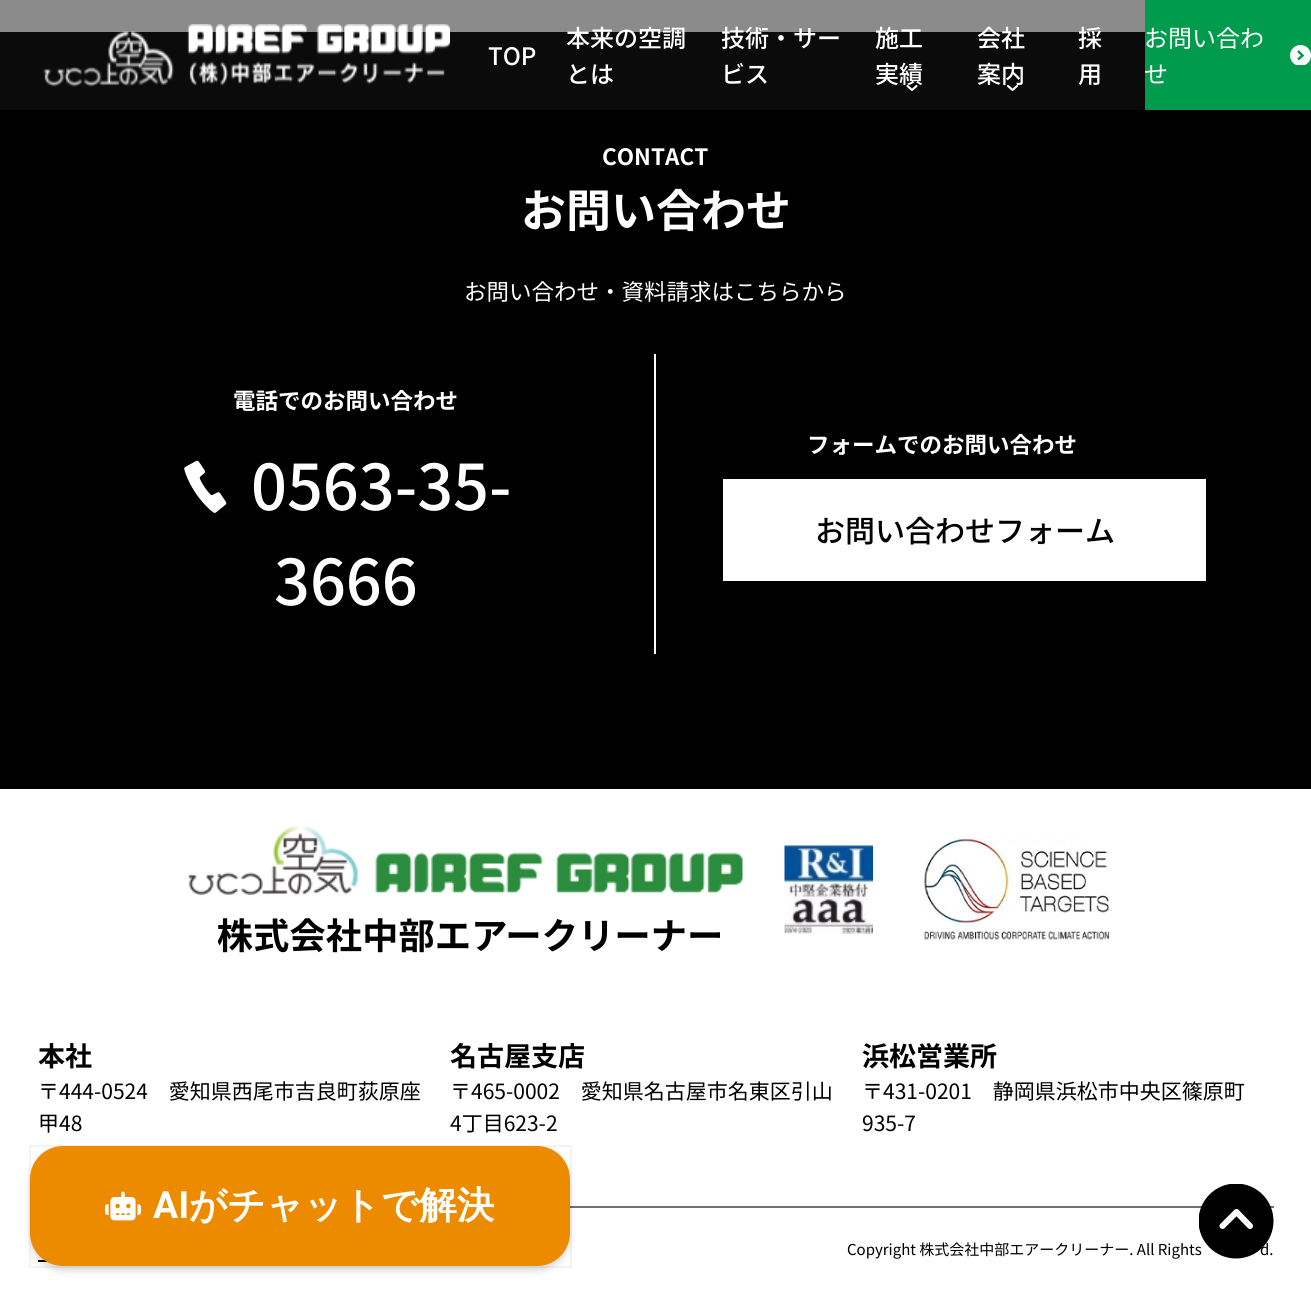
import math
import cairo

surface = cairo.ImageSurface(cairo.FORMAT_RGB24, 1311, 1296)
ctx = cairo.Context(surface)
options = cairo.FontOptions()
options.set_hint_metrics(cairo.HINT_METRICS_OFF)
options.set_hint_style(cairo.HINT_STYLE_NONE)
ctx.set_font_options(options)
ctx.set_miter_limit(4)


def set_color(code):
    ctx.set_source_rgb(*(v / 255 for v in bytes.fromhex(code[-6:])))


def draw_text(x, y, s, family, size, color, bold=False, italic=False):
    ctx.select_font_face(family, cairo.FONT_SLANT_ITALIC if italic else cairo.FONT_SLANT_NORMAL, cairo.FONT_WEIGHT_BOLD if bold else cairo.FONT_WEIGHT_NORMAL)
    ctx.set_font_size(size)
    set_color(color)
    ctx.move_to(x, y)
    ctx.show_text(s)


def fill_rect(x, y, w, h, color):
    set_color(color)
    ctx.rectangle(x, y, w, h)
    ctx.fill()


def rounded_rect(x, y, w, h, r):
    ctx.new_sub_path()
    for i, (u, v) in enumerate([(x + w - r, y + h - r), (x + r, y + h - r), (x + r, y + r), (x + w - r, y + r)]):
        ctx.arc(u, v, r, i * math.pi / 2, (i + 1) * math.pi / 2)
    ctx.close_path()


def draw_shadow(x, y, w, h, r, blur, alpha):
    ctx.push_group_with_content(cairo.CONTENT_ALPHA)
    ctx.set_operator(cairo.OPERATOR_SOURCE)
    for i in range(15, -16, -2):
        e = blur * i / 6
        if min(w, h) + 2 * e > 0:
            ctx.set_source_rgba(0, 0, 0, alpha * math.erfc((i - 1) / 8.5) / 2)
            rounded_rect(x - e, y - e, w + 2 * e, h + 2 * e, max(0, min(r + e + blur * .6, min(w, h) / 2 + e)))
            ctx.fill()
    ctx.mask(ctx.pop_group())


def draw_image(path, x, y, w, h):
    ctx.save()
    ctx.set_source_surface(cairo.ImageSurface.create_from_png(path), x, y)
    ctx.rectangle(x, y, w, h)
    ctx.fill()
    ctx.restore()


set_color("#ffffff")
ctx.paint()
fill_rect(0, 0, 1145, 32, "#8b8b8b")
fill_rect(0, 32, 1145, 78, "#0c0b0b")
draw_image("assets/img1.png", 43, 24, 407, 63)
draw_text(488, 65, "TOP", "Noto Sans JP Medium", 24, "#ffffff")
draw_text(566, 47, "本来の空調", "Noto Sans JP Medium", 24, "#ffffff")
draw_text(566, 83, "とは", "Noto Sans JP Medium", 24, "#ffffff")
draw_text(721, 47, "技術・サー", "Noto Sans JP Medium", 24, "#ffffff")
draw_text(721, 83, "ビス", "Noto Sans JP Medium", 24, "#ffffff")
draw_text(875, 47, "施工", "Noto Sans JP Medium", 24, "#ffffff")
draw_text(875, 83, "実績", "Noto Sans JP Medium", 24, "#ffffff")
ctx.new_path()
ctx.move_to(907.5, 86)
ctx.line_to(912, 90)
ctx.line_to(916.5, 86)
ctx.set_line_width(2.1)
ctx.set_line_cap(cairo.LINE_CAP_ROUND)
ctx.set_line_join(cairo.LINE_JOIN_ROUND)
ctx.stroke()
draw_text(977, 47, "会社", "Noto Sans JP Medium", 24, "#ffffff")
draw_text(977, 83, "案内", "Noto Sans JP Medium", 24, "#ffffff")
ctx.new_path()
ctx.move_to(1008, 86)
ctx.line_to(1012.5, 90)
ctx.line_to(1017, 86)
ctx.stroke()
draw_text(1078, 47, "採", "Noto Sans JP Medium", 24, "#ffffff")
draw_text(1078, 83, "用", "Noto Sans JP Medium", 24, "#ffffff")
fill_rect(1145, 0, 166, 110, "#009b4c")
draw_text(1144, 47, "お問い合わ", "Noto Sans JP", 24, "#ffffff")
ctx.save()
ctx.rectangle(1290, 45, 21, 20)
ctx.clip()
ctx.arc(1300.5, 55.5, 10.5, 0, 2 * math.pi)
ctx.fill()
ctx.restore()
ctx.new_path()
ctx.move_to(1298, 51)
ctx.line_to(1302.5, 55.5)
ctx.line_to(1298, 59.5)
set_color("#009b4c")
ctx.set_line_width(2.5)
ctx.set_line_cap(cairo.LINE_CAP_BUTT)
ctx.set_line_join(cairo.LINE_JOIN_MITER)
ctx.stroke()
draw_text(1144, 83, "せ", "Noto Sans JP", 24, "#ffffff")
fill_rect(0, 110, 1311, 679, "#000000")
draw_text(602, 165, "CONTACT", "Noto Sans JP", 22.5, "#ffffff", bold=True)
draw_text(521, 227, "お問い合わせ", "Noto Sans JP", 45, "#ffffff", bold=True)
draw_text(464, 300, "お問い合わせ・資料請求はこちらから", "Noto Sans JP", 22.5, "#ffffff")
fill_rect(654, 354, 2, 300, "#ffffff")
draw_text(233, 409, "電話でのお問い合わせ", "Noto Sans JP", 22.5, "#ffffff", bold=True)
draw_image("assets/img2.png", 184, 460, 43, 53)
draw_text(251, 510, "0563-35-", "Noto Sans JP Medium", 63, "#ffffff")
draw_text(274, 605, "3666", "Noto Sans JP Medium", 63, "#ffffff")
draw_text(807, 453, "フォームでのお問い合わせ", "Noto Sans JP", 22.5, "#ffffff", bold=True)
fill_rect(723, 479, 483, 102, "#ffffff")
draw_text(815, 542, "お問い合わせフォーム", "Noto Sans JP Medium", 30, "#000000")
fill_rect(570, 1206, 704, 2, "#707070")
draw_image("assets/img3.png", 188, 826, 555, 69)
draw_image("assets/img4.png", 218, 918, 502, 35)
draw_image("assets/img5.png", 784, 845, 89, 89)
draw_image("assets/img6.png", 924, 837, 187, 103)
draw_text(38, 1066, "本社", "Noto Sans JP", 27, "#000000", bold=True)
draw_text(38, 1099, "〒444-0524　愛知県西尾市吉良町荻原座", "Noto Sans JP", 21, "#000000")
draw_text(38, 1131, "甲48", "Noto Sans JP", 21, "#000000")
draw_text(450, 1066, "名古屋支店", "Noto Sans JP", 27, "#000000", bold=True)
draw_text(450, 1099, "〒465-0002　愛知県名古屋市名東区引山", "Noto Sans JP", 21, "#000000")
draw_text(450, 1131, "4丁目623-2", "Noto Sans JP", 21, "#000000")
draw_text(862, 1066, "浜松営業所", "Noto Sans JP", 27, "#000000", bold=True)
draw_text(862, 1099, "〒431-0201　静岡県浜松市中央区篠原町", "Noto Sans JP", 21, "#000000")
draw_text(862, 1131, "935-7", "Noto Sans JP", 21, "#000000")
ctx.save()
ctx.rectangle(1199, 1184, 75, 75)
ctx.clip()
ctx.arc(1236, 1221, 37.5, 0, 2 * math.pi)
ctx.fill()
ctx.restore()
ctx.new_path()
ctx.move_to(1222.5, 1226)
ctx.line_to(1236.5, 1212)
ctx.line_to(1250, 1226)
set_color("#ffffff")
ctx.set_line_width(6)
ctx.set_line_cap(cairo.LINE_CAP_ROUND)
ctx.set_line_join(cairo.LINE_JOIN_ROUND)
ctx.stroke()
draw_text(847, 1255, "Copyright 株式会社中部エアークリーナー. All Rights", "Noto Sans JP", 15, "#000000")
draw_text(1260, 1255, "d.", "Noto Sans JP", 15, "#000000")
fill_rect(38, 1260, 10, 2, "#000000")
set_color("#000000")
draw_shadow(30, 1151, 540, 120, 33, 2, 0.05)
draw_shadow(30, 1151, 540, 120, 33, 4, 0.1)
ctx.rectangle(30, 1146, 541, 121)
ctx.set_source_rgba(0, 0, 0, 0.05)
ctx.set_line_width(2)
ctx.set_line_cap(cairo.LINE_CAP_BUTT)
ctx.set_line_join(cairo.LINE_JOIN_MITER)
ctx.stroke()
set_color("#ec8b00")
rounded_rect(30, 1146, 540, 120, 33)
ctx.fill()
draw_image("assets/img7.png", 105, 1191, 36, 30)
draw_text(153, 1218, "AI", "Roboto", 37.5, "#ffffff", bold=True)
draw_text(189, 1218, "がチャットで解決", "WenQuanYi Zen Hei", 37.5, "#ffffff", bold=True)
surface.write_to_png("output.png")
